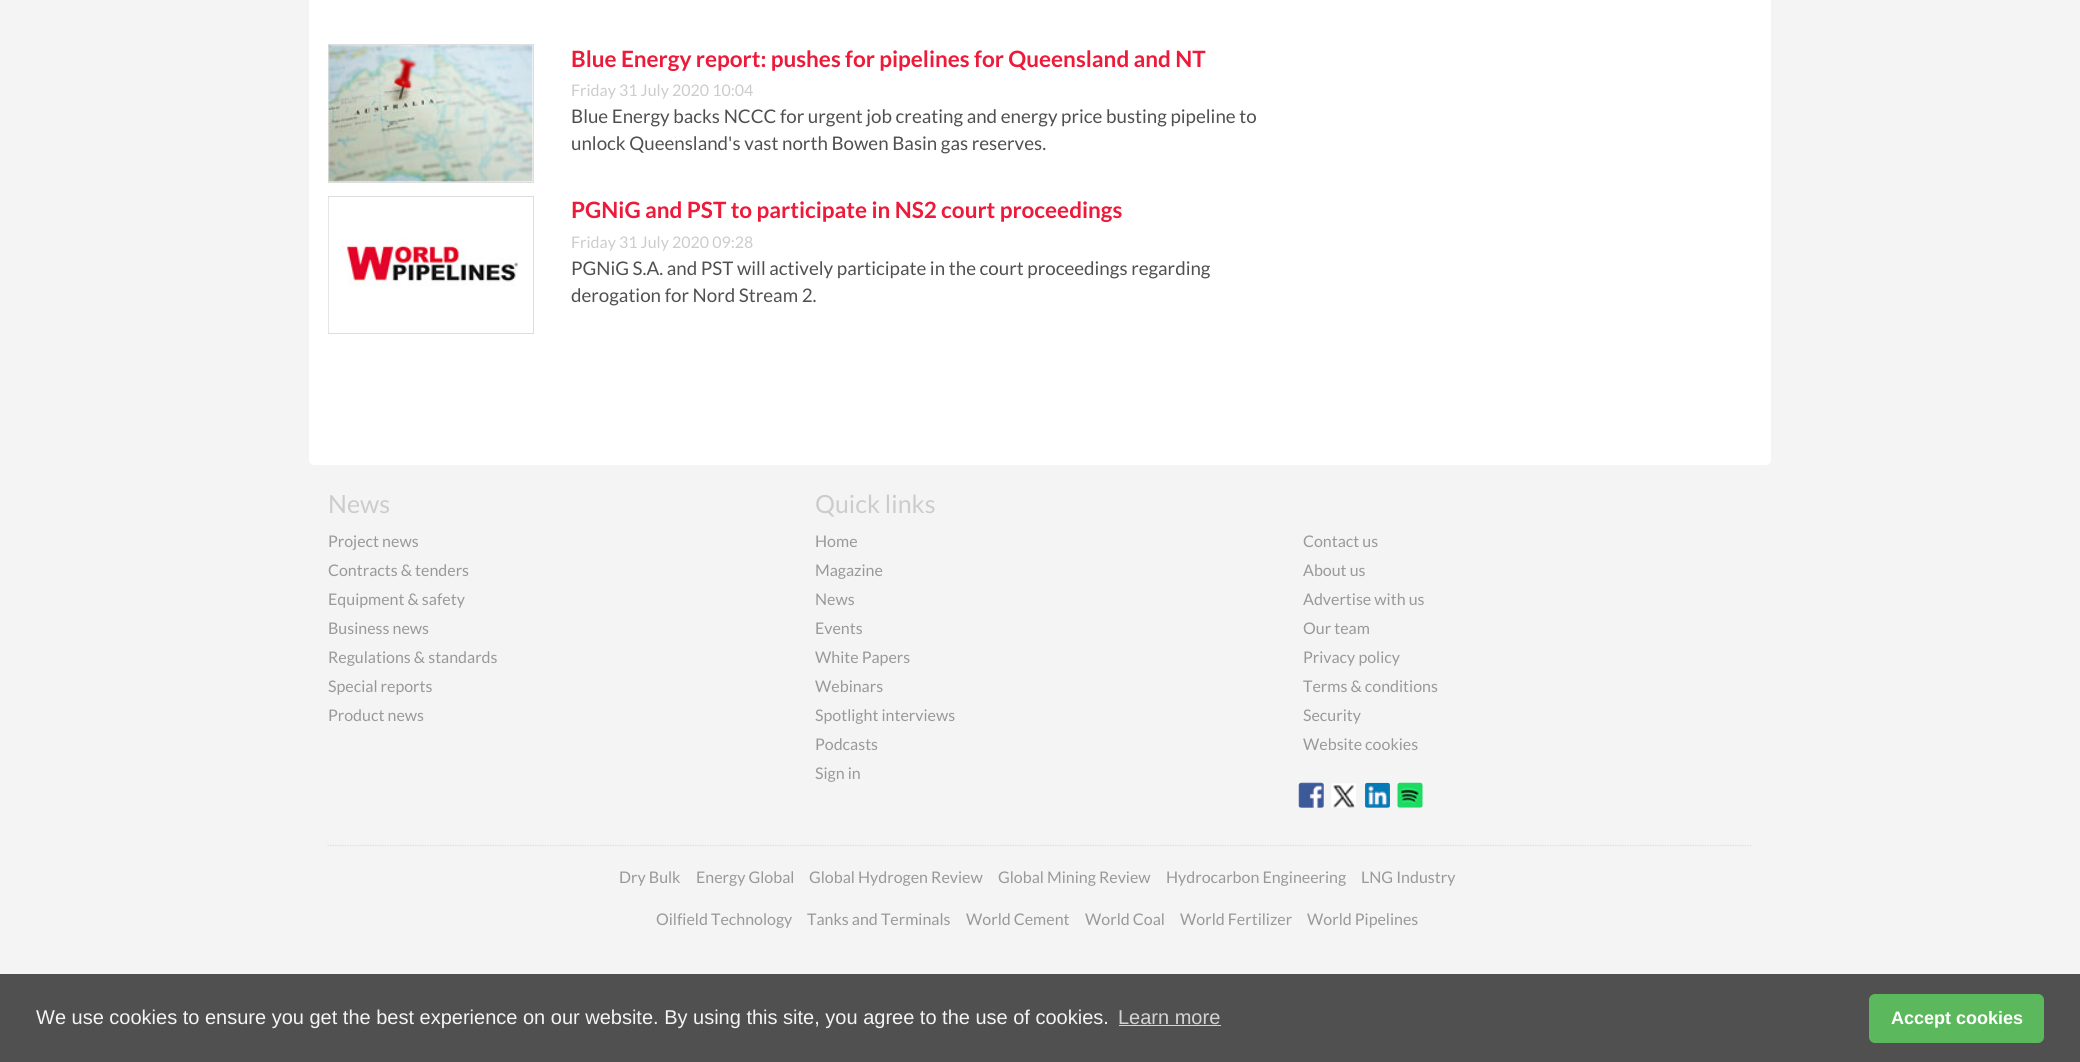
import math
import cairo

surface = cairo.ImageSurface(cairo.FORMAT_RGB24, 2080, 1062)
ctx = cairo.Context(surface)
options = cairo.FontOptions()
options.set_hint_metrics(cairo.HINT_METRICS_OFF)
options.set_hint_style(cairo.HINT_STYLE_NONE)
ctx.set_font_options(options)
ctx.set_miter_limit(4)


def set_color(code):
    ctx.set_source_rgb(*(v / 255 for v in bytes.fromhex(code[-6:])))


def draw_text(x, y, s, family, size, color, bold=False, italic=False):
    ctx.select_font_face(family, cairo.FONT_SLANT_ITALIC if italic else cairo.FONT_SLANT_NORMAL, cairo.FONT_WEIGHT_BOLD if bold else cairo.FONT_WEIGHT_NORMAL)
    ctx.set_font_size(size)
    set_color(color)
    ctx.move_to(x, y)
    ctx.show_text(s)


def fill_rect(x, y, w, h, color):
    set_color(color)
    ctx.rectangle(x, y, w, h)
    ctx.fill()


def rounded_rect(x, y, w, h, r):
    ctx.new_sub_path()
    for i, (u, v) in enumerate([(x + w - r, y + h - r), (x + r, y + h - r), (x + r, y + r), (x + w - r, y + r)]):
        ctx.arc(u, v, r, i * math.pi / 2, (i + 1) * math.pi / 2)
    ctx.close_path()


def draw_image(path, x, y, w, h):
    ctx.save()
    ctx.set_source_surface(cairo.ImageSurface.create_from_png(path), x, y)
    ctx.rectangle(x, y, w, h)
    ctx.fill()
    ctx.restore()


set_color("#f4f4f4")
ctx.paint()
set_color("#ffffff")
rounded_rect(309, -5, 1462, 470, 5)
ctx.fill()
ctx.rectangle(328.5, 44.5, 205, 138)
set_color("#dddddd")
ctx.set_line_width(1)
ctx.stroke()
draw_image("assets/img1.png", 328, 45, 205, 137)
draw_text(571, 67, "Blue Energy report: pushes for pipelines for Queensland and NT", "Lato", 22.5, "#ed1a3a", bold=True)
draw_text(571, 96, "Friday 31 July 2020 10:04", "Lato", 16, "#cccccc")
draw_text(571, 123, "Blue Energy backs NCCC for urgent job creating and energy price busting pipeline to", "Lato", 18.75, "#505050")
draw_text(571, 150, "unlock Queensland's vast north Bowen Basin gas reserves.", "Lato", 18.75, "#505050")
ctx.rectangle(328.5, 196.5, 205, 137)
set_color("#dddddd")
ctx.stroke()
draw_image("assets/img2.png", 328, 198, 191, 135)
draw_text(571, 218, "PGNiG and PST to participate in NS2 court proceedings", "Lato", 22.5, "#ed1a3a", bold=True)
draw_text(571, 248, "Friday 31 July 2020 09:28", "Lato", 16, "#cccccc")
draw_text(571, 275, "PGNiG S.A. and PST will actively participate in the court proceedings regarding", "Lato", 18.75, "#505050")
draw_text(571, 302, "derogation for Nord Stream 2.", "Lato", 18.75, "#505050")
draw_text(328, 513, "News", "Lato", 25, "#cccccc")
draw_text(328, 547, "Project news", "Lato", 16, "#999999")
draw_text(328, 576, "Contracts & tenders", "Lato", 16, "#999999")
draw_text(328, 605, "Equipment & safety", "Lato", 16, "#999999")
draw_text(328, 634, "Business news", "Lato", 16, "#999999")
draw_text(328, 663, "Regulations & standards", "Lato", 16, "#999999")
draw_text(328, 692, "Special reports", "Lato", 16, "#999999")
draw_text(328, 721, "Product news", "Lato", 16, "#999999")
draw_text(815, 513, "Quick links", "Lato", 25, "#cccccc")
draw_text(815, 547, "Home", "Lato", 16, "#999999")
draw_text(815, 576, "Magazine", "Lato", 16, "#999999")
draw_text(815, 605, "News", "Lato", 16, "#999999")
draw_text(815, 634, "Events", "Lato", 16, "#999999")
draw_text(815, 663, "White Papers", "Lato", 16, "#999999")
draw_text(815, 692, "Webinars", "Lato", 16, "#999999")
draw_text(815, 721, "Spotlight interviews", "Lato", 16, "#999999")
draw_text(815, 750, "Podcasts", "Lato", 16, "#999999")
draw_text(815, 779, "Sign in", "Lato", 16, "#999999")
draw_text(1303, 547, "Contact us", "Lato", 16, "#999999")
draw_text(1303, 576, "About us", "Lato", 16, "#999999")
draw_text(1303, 605, "Advertise with us", "Lato", 16, "#999999")
draw_text(1303, 634, "Our team", "Lato", 16, "#999999")
draw_text(1303, 663, "Privacy policy", "Lato", 16, "#999999")
draw_text(1303, 692, "Terms & conditions", "Lato", 16, "#999999")
draw_text(1303, 721, "Security", "Lato", 16, "#999999")
draw_text(1303, 750, "Website cookies", "Lato", 16, "#999999")
draw_image("assets/img3.png", 1298, 782, 26, 26)
draw_image("assets/img4.png", 1331, 783, 25, 25)
draw_image("assets/img5.png", 1365, 782, 25, 26)
draw_image("assets/img6.png", 1397, 782, 26, 26)
ctx.new_path()
ctx.move_to(327.5, 845.5)
ctx.line_to(1752.5, 845.5)
set_color("#dddddd")
ctx.set_line_width(1.2)
ctx.set_dash([1.25, 1.25])
ctx.stroke()
draw_text(619, 883, "Dry Bulk", "Lato", 16, "#999999")
draw_text(696, 883, "Energy Global", "Lato", 16, "#999999")
draw_text(809, 883, "Global Hydrogen Review", "Lato", 16, "#999999")
draw_text(998, 883, "Global Mining Review", "Lato", 16, "#999999")
draw_text(1166, 883, "Hydrocarbon Engineering", "Lato", 16, "#999999")
draw_text(1361, 883, "LNG Industry", "Lato", 16, "#999999")
draw_text(656, 925, "Oilfield Technology", "Lato", 16, "#999999")
draw_text(807, 925, "Tanks and Terminals", "Lato", 16, "#999999")
draw_text(966, 925, "World Cement", "Lato", 16, "#999999")
draw_text(1085, 925, "World Coal", "Lato", 16, "#999999")
draw_text(1180, 925, "World Fertilizer", "Lato", 16, "#999999")
draw_text(1307, 925, "World Pipelines", "Lato", 16, "#999999")
fill_rect(0, 974, 2080, 88, "#505050")
draw_text(36, 1024, "We use cookies to ensure you get the best experience on our website. By using this site, you agree to the use of cookies.", "Liberation Sans", 20, "#f4f4f4")
draw_text(1118, 1024, "Learn more", "Liberation Sans", 20, "#d3d3d3")
fill_rect(1119, 1025, 102, 1, "#d3d3d3")
set_color("#5cb85c")
rounded_rect(1869, 994, 175, 49, 6)
ctx.fill()
draw_text(1891, 1024, "Accept cookies", "Liberation Sans", 18, "#ffffff", bold=True)
surface.write_to_png("output.png")
